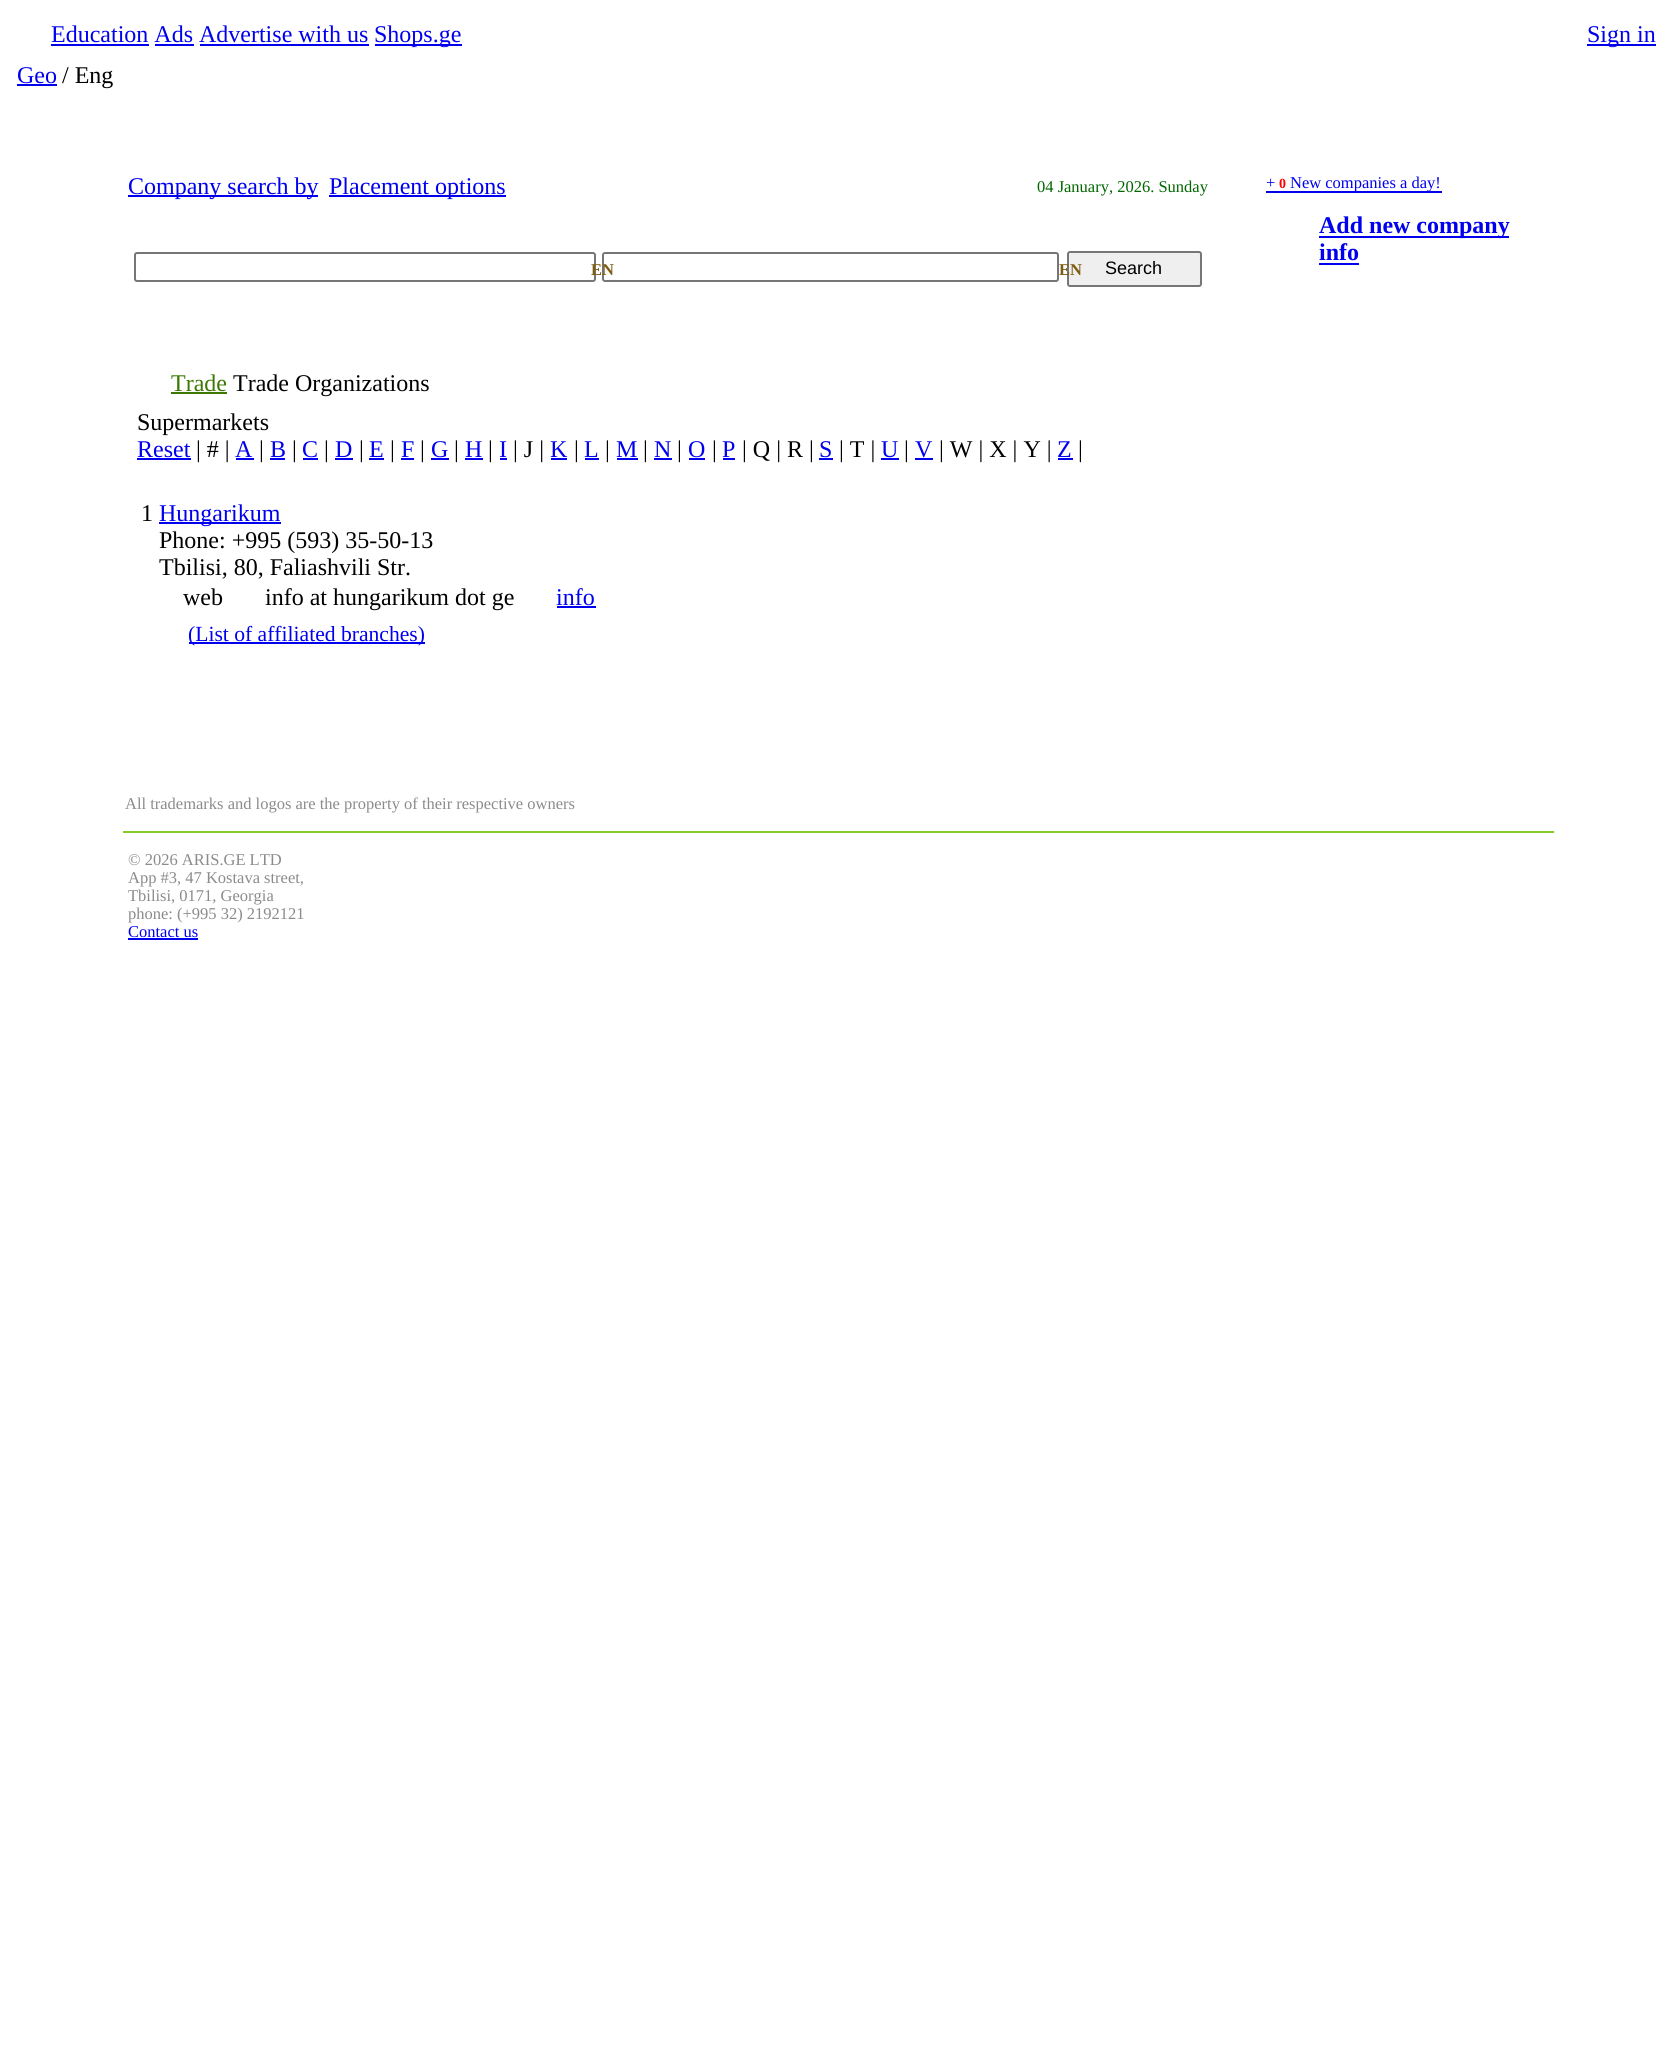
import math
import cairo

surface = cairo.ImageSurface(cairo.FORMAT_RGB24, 1676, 2050)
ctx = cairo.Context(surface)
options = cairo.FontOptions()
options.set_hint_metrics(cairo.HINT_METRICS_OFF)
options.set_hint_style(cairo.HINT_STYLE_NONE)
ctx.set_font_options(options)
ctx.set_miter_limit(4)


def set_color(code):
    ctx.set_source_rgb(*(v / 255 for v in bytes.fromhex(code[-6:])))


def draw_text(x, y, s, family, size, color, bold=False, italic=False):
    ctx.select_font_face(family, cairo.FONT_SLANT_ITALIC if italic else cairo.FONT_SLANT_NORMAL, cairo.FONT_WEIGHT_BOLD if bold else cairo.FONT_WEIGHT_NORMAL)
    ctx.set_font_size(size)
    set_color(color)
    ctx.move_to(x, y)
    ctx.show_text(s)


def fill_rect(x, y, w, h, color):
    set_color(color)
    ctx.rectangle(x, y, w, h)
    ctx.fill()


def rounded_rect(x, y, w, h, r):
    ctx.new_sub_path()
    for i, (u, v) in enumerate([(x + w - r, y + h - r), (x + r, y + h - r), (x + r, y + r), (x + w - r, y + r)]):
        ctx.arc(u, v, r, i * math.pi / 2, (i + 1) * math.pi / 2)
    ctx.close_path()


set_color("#ffffff")
ctx.paint()
draw_text(51, 42, "Education Ads Advertise with us", "Liberation Serif", 24, "#0000ee")
fill_rect(51, 44, 98, 2, "#0000ee")
fill_rect(375, 44, 87, 2, "#0000ee")
draw_text(374, 42, "Shops.ge", "Liberation Serif", 24, "#0000ee")
fill_rect(155, 44, 39, 2, "#0000ee")
fill_rect(200, 44, 169, 2, "#0000ee")
fill_rect(1587, 44, 69, 2, "#0000ee")
draw_text(1587, 42, "Sign in", "Liberation Serif", 24, "#0000ee")
draw_text(17, 83, "Geo", "Liberation Serif", 24, "#0000ee")
fill_rect(17, 84, 40, 2, "#0000ee")
draw_text(62, 83, "/ Eng", "Liberation Serif", 24, "#000000")
fill_rect(128, 195, 190, 2, "#0000ee")
draw_text(128, 194, "Company search by", "Liberation Serif", 24, "#0000ee")
fill_rect(329, 195, 177, 2, "#0000ee")
draw_text(329, 194, "Placement options", "Liberation Serif", 24, "#0000ee")
draw_text(1037, 192, "04 January, 2026. Sunday", "Liberation Serif", 16.5, "#006600")
rounded_rect(135, 253, 460, 28, 2)
set_color("#767676")
ctx.stroke()
rounded_rect(603, 253, 455, 28, 2)
ctx.stroke()
draw_text(591, 275, "EN", "Liberation Serif", 16.5, "#805c12", bold=True)
set_color("#efefef")
rounded_rect(1068, 252, 133, 34, 2)
ctx.fill_preserve()
set_color("#767676")
ctx.stroke()
draw_text(1059, 275, "EN", "Liberation Serif", 16.5, "#805c12", bold=True)
draw_text(1105, 274, "Search", "Liberation Sans", 18, "#000000")
draw_text(1266, 188, "+", "Liberation Serif", 16.5, "#0000ee")
draw_text(1279, 188, "0", "Liberation Serif", 14, "#ff0000", bold=True)
fill_rect(1266, 191, 176, 2, "#0000ee")
draw_text(1290, 188, "New companies a day!", "Liberation Serif", 16.5, "#0000ee")
fill_rect(1319, 236, 190, 2, "#0000ee")
draw_text(1319, 233, "Add new company", "Liberation Serif", 24, "#0000ee", bold=True)
draw_text(1319, 260, "info", "Liberation Serif", 24, "#0000ee", bold=True)
fill_rect(1319, 263, 40, 2, "#0000ee")
draw_text(171, 391, "Trade", "Liberation Serif", 24, "#3c7802")
fill_rect(171, 392, 56, 2, "#3c7802")
draw_text(233, 391, "Trade Organizations", "Liberation Serif", 24, "#000000")
draw_text(137, 430, "Supermarkets", "Liberation Serif", 24, "#000000")
draw_text(137, 457, "Reset", "Liberation Serif", 24, "#0000ee")
fill_rect(137, 458, 54, 2, "#0000ee")
draw_text(196, 457, "| # |", "Liberation Serif", 24, "#000000")
draw_text(235, 457, "A", "Liberation Serif", 24, "#0000ee")
fill_rect(236, 458, 18, 2, "#0000ee")
draw_text(259, 457, "|", "Liberation Serif", 24, "#000000")
draw_text(270, 457, "B", "Liberation Serif", 24, "#0000ee")
fill_rect(270, 458, 15, 2, "#0000ee")
draw_text(292, 457, "|", "Liberation Serif", 24, "#000000")
draw_text(302, 457, "C", "Liberation Serif", 24, "#0000ee")
fill_rect(303, 458, 15, 2, "#0000ee")
draw_text(324, 457, "|", "Liberation Serif", 24, "#000000")
draw_text(335, 457, "D", "Liberation Serif", 24, "#0000ee")
fill_rect(335, 458, 18, 2, "#0000ee")
draw_text(359, 457, "|", "Liberation Serif", 24, "#000000")
draw_text(369, 457, "E", "Liberation Serif", 24, "#0000ee")
fill_rect(369, 458, 15, 2, "#0000ee")
draw_text(390, 457, "|", "Liberation Serif", 24, "#000000")
draw_text(401, 457, "F", "Liberation Serif", 24, "#0000ee")
fill_rect(401, 458, 13, 2, "#0000ee")
draw_text(420, 457, "|", "Liberation Serif", 24, "#000000")
draw_text(431, 457, "G", "Liberation Serif", 24, "#0000ee")
fill_rect(431, 458, 18, 2, "#0000ee")
draw_text(454, 457, "|", "Liberation Serif", 24, "#000000")
draw_text(465, 457, "H", "Liberation Serif", 24, "#0000ee")
fill_rect(465, 458, 18, 2, "#0000ee")
draw_text(488, 457, "|", "Liberation Serif", 24, "#000000")
draw_text(499, 457, "I", "Liberation Serif", 24, "#0000ee")
fill_rect(500, 458, 7, 2, "#0000ee")
draw_text(513, 457, "| J |", "Liberation Serif", 24, "#000000")
draw_text(550, 457, "K", "Liberation Serif", 24, "#0000ee")
fill_rect(551, 458, 16, 2, "#0000ee")
draw_text(574, 457, "|", "Liberation Serif", 24, "#000000")
draw_text(584, 457, "L", "Liberation Serif", 24, "#0000ee")
fill_rect(585, 458, 14, 2, "#0000ee")
draw_text(605, 457, "|", "Liberation Serif", 24, "#000000")
draw_text(616, 457, "M", "Liberation Serif", 24, "#0000ee")
fill_rect(617, 458, 21, 2, "#0000ee")
draw_text(643, 457, "|", "Liberation Serif", 24, "#000000")
draw_text(654, 457, "N", "Liberation Serif", 24, "#0000ee")
fill_rect(654, 458, 18, 2, "#0000ee")
draw_text(677, 457, "|", "Liberation Serif", 24, "#000000")
draw_text(688, 457, "O", "Liberation Serif", 24, "#0000ee")
fill_rect(689, 458, 16, 2, "#0000ee")
draw_text(712, 457, "|", "Liberation Serif", 24, "#000000")
draw_text(722, 457, "P", "Liberation Serif", 24, "#0000ee")
fill_rect(723, 458, 12, 2, "#0000ee")
draw_text(742, 457, "| Q | R |", "Liberation Serif", 24, "#000000")
draw_text(819, 457, "S", "Liberation Serif", 24, "#0000ee")
fill_rect(819, 458, 14, 2, "#0000ee")
draw_text(839, 457, "| T |", "Liberation Serif", 24, "#000000")
draw_text(881, 457, "U", "Liberation Serif", 24, "#0000ee")
fill_rect(881, 458, 18, 2, "#0000ee")
draw_text(904, 457, "|", "Liberation Serif", 24, "#000000")
draw_text(915, 457, "V", "Liberation Serif", 24, "#0000ee")
fill_rect(915, 458, 18, 2, "#0000ee")
draw_text(939, 457, "| W | X | Y |", "Liberation Serif", 24, "#000000")
draw_text(1057, 457, "Z", "Liberation Serif", 24, "#0000ee")
fill_rect(1058, 458, 15, 2, "#0000ee")
draw_text(1078, 457, "|", "Liberation Serif", 24, "#000000")
draw_text(141, 521, "1", "Liberation Serif", 24, "#000000")
fill_rect(159, 522, 122, 2, "#0000ee")
draw_text(159, 521, "Hungarikum", "Liberation Serif", 24, "#0000ee")
draw_text(159, 548, "Phone: +995 (593) 35-50-13", "Liberation Serif", 24, "#000000")
draw_text(159, 575, "Tbilisi, 80, Faliashvili Str.", "Liberation Serif", 24, "#000000")
draw_text(183, 605, "web", "Liberation Serif", 24, "#000000")
draw_text(265, 605, "info at hungarikum dot ge", "Liberation Serif", 24, "#000000")
draw_text(556, 605, "info", "Liberation Serif", 24, "#0000ee")
fill_rect(557, 606, 39, 2, "#0000ee")
fill_rect(189, 642, 236, 2, "#0000ee")
draw_text(188, 641, "(List of affiliated branches)", "Liberation Serif", 21.6, "#0000ee")
draw_text(125, 809, "All trademarks and logos are the property of their respective owners", "Liberation Serif", 16.5, "#8b8b8b")
fill_rect(123, 831, 1431, 2, "#83cc23")
draw_text(128, 865, "© 2026 ARIS.GE LTD", "Liberation Serif", 16.5, "#8b8b8b")
draw_text(128, 883, "App #3, 47 Kostava street,", "Liberation Serif", 16.5, "#8b8b8b")
draw_text(128, 901, "Tbilisi, 0171, Georgia", "Liberation Serif", 16.5, "#8b8b8b")
draw_text(128, 919, "phone: (+995 32) 2192121", "Liberation Serif", 16.5, "#8b8b8b")
draw_text(128, 937, "Contact us", "Liberation Serif", 16.5, "#0000ee")
fill_rect(128, 938, 70, 2, "#0000ee")
surface.write_to_png("output.png")
